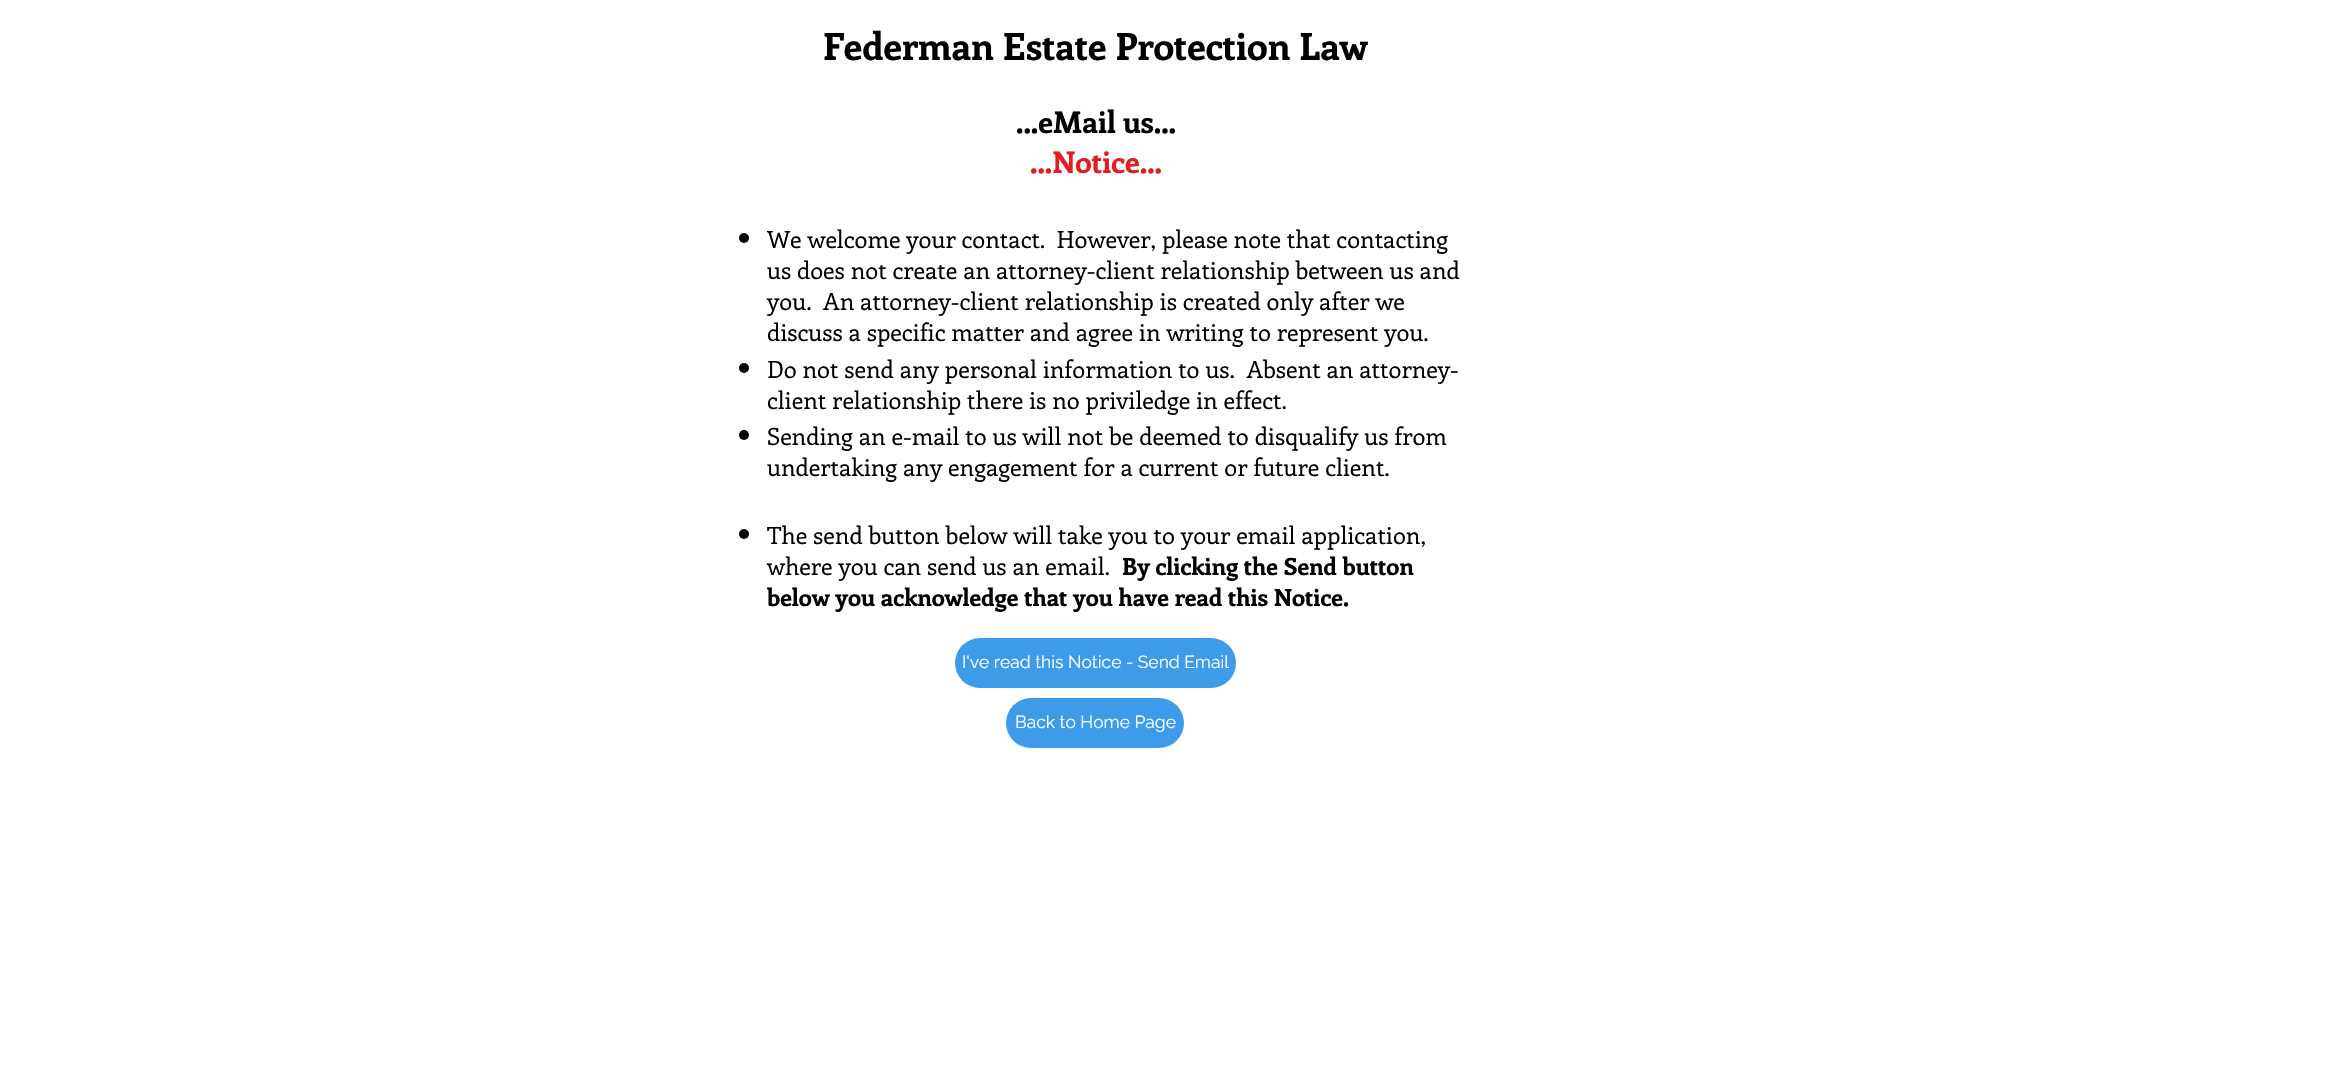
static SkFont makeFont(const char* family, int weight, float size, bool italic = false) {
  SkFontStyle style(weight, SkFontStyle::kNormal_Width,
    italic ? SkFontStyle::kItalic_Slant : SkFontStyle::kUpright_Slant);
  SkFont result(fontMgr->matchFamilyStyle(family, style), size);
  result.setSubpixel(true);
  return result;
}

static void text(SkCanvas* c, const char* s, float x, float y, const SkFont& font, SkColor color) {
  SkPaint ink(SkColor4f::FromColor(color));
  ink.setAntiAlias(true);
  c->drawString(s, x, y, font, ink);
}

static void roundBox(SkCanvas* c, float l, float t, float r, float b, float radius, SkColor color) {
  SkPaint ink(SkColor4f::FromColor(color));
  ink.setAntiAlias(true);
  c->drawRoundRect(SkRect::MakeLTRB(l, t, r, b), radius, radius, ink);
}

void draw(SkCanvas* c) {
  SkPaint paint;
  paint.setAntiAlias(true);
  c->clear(0xffffffff);
  SkFont face1 = makeFont("Enriqueta", 700, 37.5f);
  text(c, "Federman Estate Protection Law", 823, 60, face1, 0xff000000);
  SkFont face2 = makeFont("Enriqueta", 700, 30);
  text(c, "...eMail us...", 1016, 133, face2, 0xff000000);
  text(c, "...Notice...", 1030, 173, face2, 0xffe21c21);
  paint.setColor(0xff000000);
  c->drawCircle(744, 238, 5, paint);
  SkFont face3 = makeFont("Enriqueta", 400, 23.75f);
  text(c, "We welcome your contact.  However, please note that contacting", 767, 248, face3, 0xff000000);
  text(c, "us does not create an attorney-client relationship between us and", 767, 279, face3, 0xff000000);
  text(c, "you.  An attorney-client relationship is created only after we", 767, 310, face3, 0xff000000);
  text(c, "discuss a specific matter and agree in writing to represent you.", 767, 341, face3, 0xff000000);
  c->drawCircle(744, 368, 5, paint);
  text(c, "Do not send any personal information to us.  Absent an attorney-", 767, 378, face3, 0xff000000);
  text(c, "client relationship there is no priviledge in effect.", 767, 409, face3, 0xff000000);
  c->drawCircle(744, 435, 5, paint);
  text(c, "Sending an e-mail to us will not be deemed to disqualify us from", 767, 445, face3, 0xff000000);
  text(c, "undertaking any engagement for a current or future client.", 767, 476, face3, 0xff000000);
  c->drawCircle(744, 534, 5, paint);
  text(c, "The send button below will take you to your email application,", 767, 544, face3, 0xff000000);
  text(c, "where you can send us an email.", 767, 575, face3, 0xff000000);
  SkFont face4 = makeFont("Enriqueta", 700, 23.75f);
  text(c, "By clicking the Send button", 1122, 575, face4, 0xff000000);
  text(c, "below you acknowledge that you have read this Notice.", 767, 606, face4, 0xff000000);
  roundBox(c, 955, 638, 1236, 688, 25, 0xff3d9be9);
  SkFont face5 = makeFont("Raleway", 400, 17.5f);
  text(c, "I've read this Notice - Send Email", 962, 668, face5, 0xffffffff);
  roundBox(c, 1006, 698, 1184, 748, 25, 0xff3d9be9);
  text(c, "Back to Home Page", 1015, 728, face5, 0xffffffff);
}
